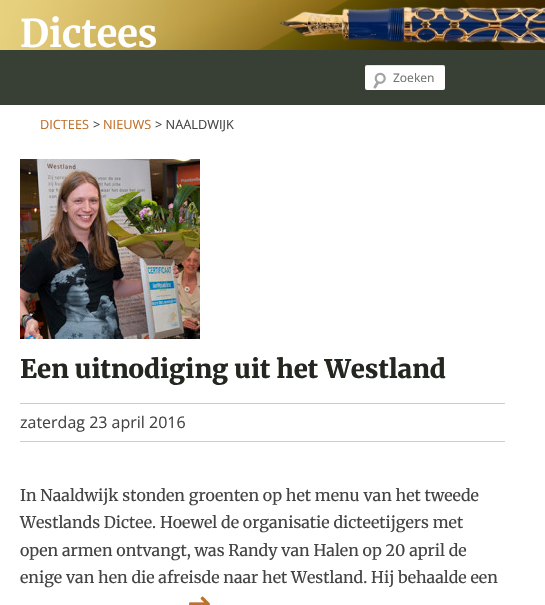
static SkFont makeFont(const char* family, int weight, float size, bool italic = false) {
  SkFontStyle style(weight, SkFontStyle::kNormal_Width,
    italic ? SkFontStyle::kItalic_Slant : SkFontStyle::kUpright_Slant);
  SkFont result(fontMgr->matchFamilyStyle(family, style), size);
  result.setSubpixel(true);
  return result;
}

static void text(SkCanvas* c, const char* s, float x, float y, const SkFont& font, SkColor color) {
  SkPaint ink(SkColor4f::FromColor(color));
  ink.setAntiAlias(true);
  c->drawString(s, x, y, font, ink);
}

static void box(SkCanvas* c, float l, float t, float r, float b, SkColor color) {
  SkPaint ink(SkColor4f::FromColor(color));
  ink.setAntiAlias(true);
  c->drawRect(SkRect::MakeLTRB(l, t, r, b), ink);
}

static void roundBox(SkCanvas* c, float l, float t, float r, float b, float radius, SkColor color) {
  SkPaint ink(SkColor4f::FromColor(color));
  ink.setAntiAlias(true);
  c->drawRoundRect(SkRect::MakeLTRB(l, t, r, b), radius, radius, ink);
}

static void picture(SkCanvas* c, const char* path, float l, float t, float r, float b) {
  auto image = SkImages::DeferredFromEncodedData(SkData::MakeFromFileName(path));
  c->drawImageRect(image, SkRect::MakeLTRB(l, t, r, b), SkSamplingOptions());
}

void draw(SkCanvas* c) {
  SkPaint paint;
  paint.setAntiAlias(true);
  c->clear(0xffffffff);
  picture(c, "img_01.png", 0, 0, 545, 50);
  SkFont face1 = makeFont("Merriweather", 700, 38);
  text(c, "Dictees", 20, 47, face1, 0xffffffff);
  box(c, 0, 50, 545, 105, 0xff384035);
  roundBox(c, 365, 65, 445, 90, 2, 0xffffffff);
  picture(c, "img_02.png", 373, 72, 386, 89);
  paint.setColor(0x1a000000);
  c->drawPath(SkPathBuilder().moveTo(367, 66).lineTo(443, 66).cubicTo(444, 66, 445, 67, 445, 68).cubicTo(445, 62, 433, 65, 430, 65).lineTo(380, 65).cubicTo(377, 65, 365, 62, 365, 68).cubicTo(365, 67, 366, 66, 367, 66).close().detach(), paint);
  SkFont face2 = makeFont("Noto Sans", 400, 12);
  text(c, "Zoeken", 393, 82, face2, 0xff757575);
  SkFont face3 = makeFont("Open Sans", 400, 12.75f);
  text(c, "DICTEES", 40, 129, face3, 0xffbe712d);
  text(c, ">", 93, 129, face3, 0xff444444);
  text(c, "NIEUWS", 103, 129, face3, 0xffbe712d);
  text(c, "> NAALDWIJK", 155, 129, face3, 0xff444444);
  picture(c, "img_03.png", 20, 159, 200, 339);
  SkFont face4 = makeFont("Merriweather", 900, 25.6f);
  text(c, "Een uitnodiging uit het Westland", 20, 378, face4, 0xff232720);
  box(c, 20, 403, 505, 404, 0xffcccccc);
  box(c, 20, 441, 505, 442, 0xffcccccc);
  SkFont face5 = makeFont("Open Sans", 400, 16);
  text(c, "zaterdag 23 april 2016", 20, 428, face5, 0xff444444);
  SkFont face6 = makeFont("Merriweather", 400, 16);
  text(c, "In Naaldwijk stonden groenten op het menu van het tweede", 20, 501, face6, 0xff444444);
  text(c, "Westlands Dictee. Hoewel de organisatie dicteetijgers met", 20, 528, face6, 0xff444444);
  text(c, "open armen ontvangt, was Randy van Halen op 20 april de", 20, 556, face6, 0xff444444);
  text(c, "enige van hen die afreisde naar het Westland. Hij behaalde een", 20, 583, face6, 0xff444444);
  picture(c, "img_04.png", 189, 596, 210, 605);
}
